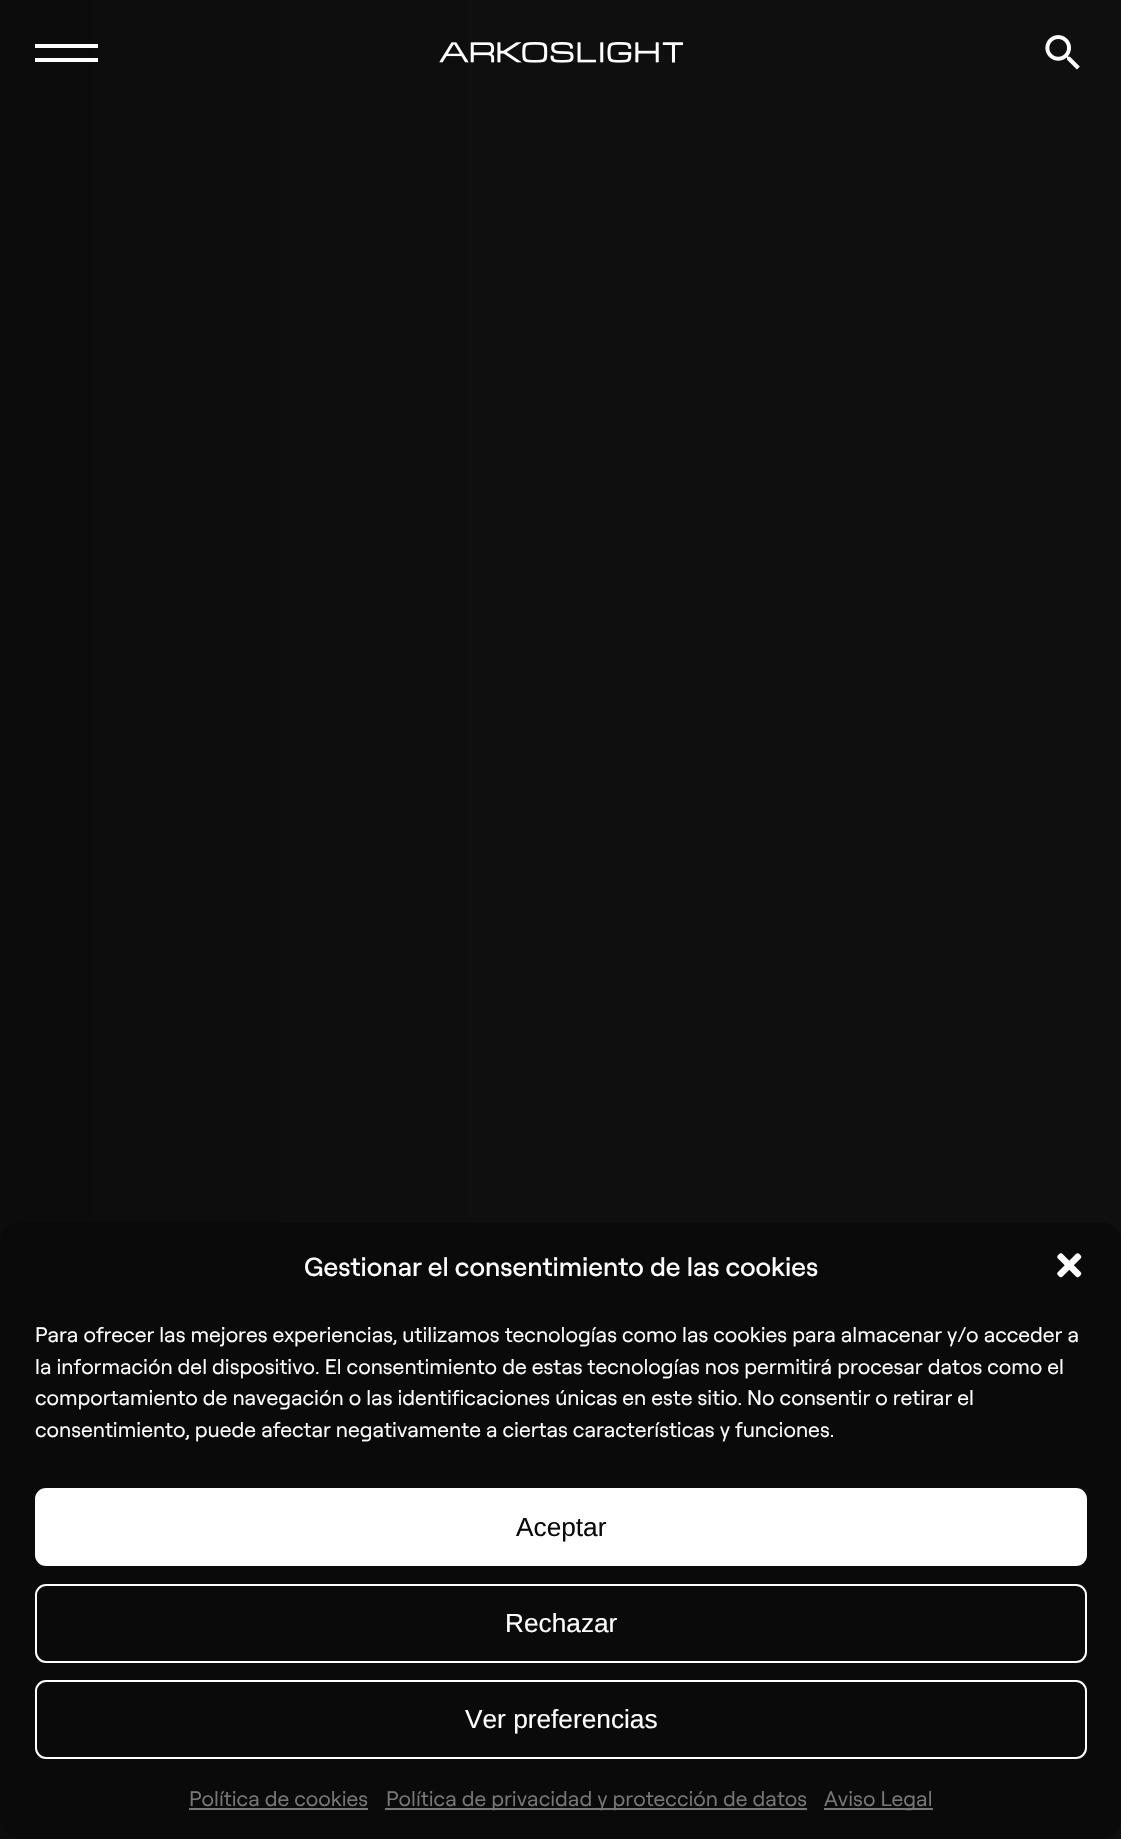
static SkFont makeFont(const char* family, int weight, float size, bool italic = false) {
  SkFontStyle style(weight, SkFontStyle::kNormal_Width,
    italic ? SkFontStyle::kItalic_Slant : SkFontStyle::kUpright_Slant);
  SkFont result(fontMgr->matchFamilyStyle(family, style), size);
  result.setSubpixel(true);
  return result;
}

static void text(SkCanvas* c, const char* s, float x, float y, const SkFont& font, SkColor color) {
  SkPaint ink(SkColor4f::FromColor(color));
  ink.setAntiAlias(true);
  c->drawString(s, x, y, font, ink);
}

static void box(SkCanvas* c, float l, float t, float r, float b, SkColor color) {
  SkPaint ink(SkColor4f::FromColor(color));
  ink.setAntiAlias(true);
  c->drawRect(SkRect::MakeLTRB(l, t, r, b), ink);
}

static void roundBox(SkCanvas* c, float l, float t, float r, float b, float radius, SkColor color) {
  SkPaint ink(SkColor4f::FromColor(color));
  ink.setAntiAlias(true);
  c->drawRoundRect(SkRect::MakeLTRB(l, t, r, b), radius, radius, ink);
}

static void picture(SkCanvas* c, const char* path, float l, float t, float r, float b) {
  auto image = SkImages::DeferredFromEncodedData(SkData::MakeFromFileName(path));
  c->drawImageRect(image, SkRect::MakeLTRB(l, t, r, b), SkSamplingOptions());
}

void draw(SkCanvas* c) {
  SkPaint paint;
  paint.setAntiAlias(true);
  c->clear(0xffffffff);
  {
    const SkColor colors[] = {0xff0c0c0c, 0xff0f0f0f};
    const float stops[] = {0, 0.5f};
    const SkPoint ends[] = {{0, 920}, {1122, 920}};
    paint.setShader(SkGradientShader::MakeLinear(ends, colors, stops, 2, SkTileMode::kClamp));
    paint.setAlpha(255);
  }
  c->drawRect(SkRect::MakeLTRB(0, 0, 1121, 1839), paint);
  box(c, 35, 44, 98, 48, 0xffffffff);
  box(c, 35, 58, 98, 62, 0xffffffff);
  picture(c, "img_01.png", 439, 42, 683, 63);
  picture(c, "img_02.png", 1045, 35, 1080, 70);
  roundBox(c, 0, 1222, 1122, 1839, 21, 0xff0a0a0a);
  SkFont face1 = makeFont("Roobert", 500, 26.25f);
  text(c, "Gestionar el consentimiento de las cookies", 304, 1276, face1, 0xffffffff);
  picture(c, "img_03.png", 1057, 1253, 1082, 1278);
  SkFont face2 = makeFont("Roobert", 400, 21);
  text(c, "Para ofrecer las mejores experiencias, utilizamos tecnologías como las cookies para almacenar y/o acceder a", 35, 1342, face2, 0xffffffff);
  text(c, "la información del dispositivo. El consentimiento de estas tecnologías nos permitirá procesar datos como el", 35, 1374, face2, 0xffffffff);
  text(c, "comportamiento de navegación o las identificaciones únicas en este sitio. No consentir o retirar el", 35, 1405, face2, 0xffffffff);
  text(c, "consentimiento, puede afectar negativamente a ciertas características y funciones.", 35, 1437, face2, 0xffffffff);
  paint.setShader(nullptr);
  paint.setColor(0xffffffff);
  c->drawRoundRect(SkRect::MakeLTRB(36, 1489, 1086, 1565), 10, 10, paint);
  paint.setStyle(SkPaint::kStroke_Style);
  paint.setStrokeWidth(2);
  c->drawRoundRect(SkRect::MakeLTRB(36, 1489, 1086, 1565), 10, 10, paint);
  SkFont face3 = makeFont("Liberation Sans", 400, 26.25f);
  text(c, "Aceptar", 516, 1536, face3, 0xff0a0a0a);
  c->drawRoundRect(SkRect::MakeLTRB(36, 1585, 1086, 1662), 10, 10, paint);
  text(c, "Rechazar", 505, 1632, face3, 0xffffffff);
  c->drawRoundRect(SkRect::MakeLTRB(36, 1681, 1086, 1758), 10, 10, paint);
  text(c, "Ver preferencias", 465, 1728, face3, 0xffffffff);
  text(c, "Política de cookies", 189, 1806, face2, 0xff777777);
  box(c, 189, 1808, 368, 1810, 0xff777777);
  box(c, 385, 1808, 807, 1810, 0xff777777);
  text(c, "Política de privacidad y protección de datos", 386, 1806, face2, 0xff777777);
  box(c, 824, 1808, 933, 1810, 0xff777777);
  text(c, "Aviso Legal", 824, 1806, face2, 0xff777777);
}
